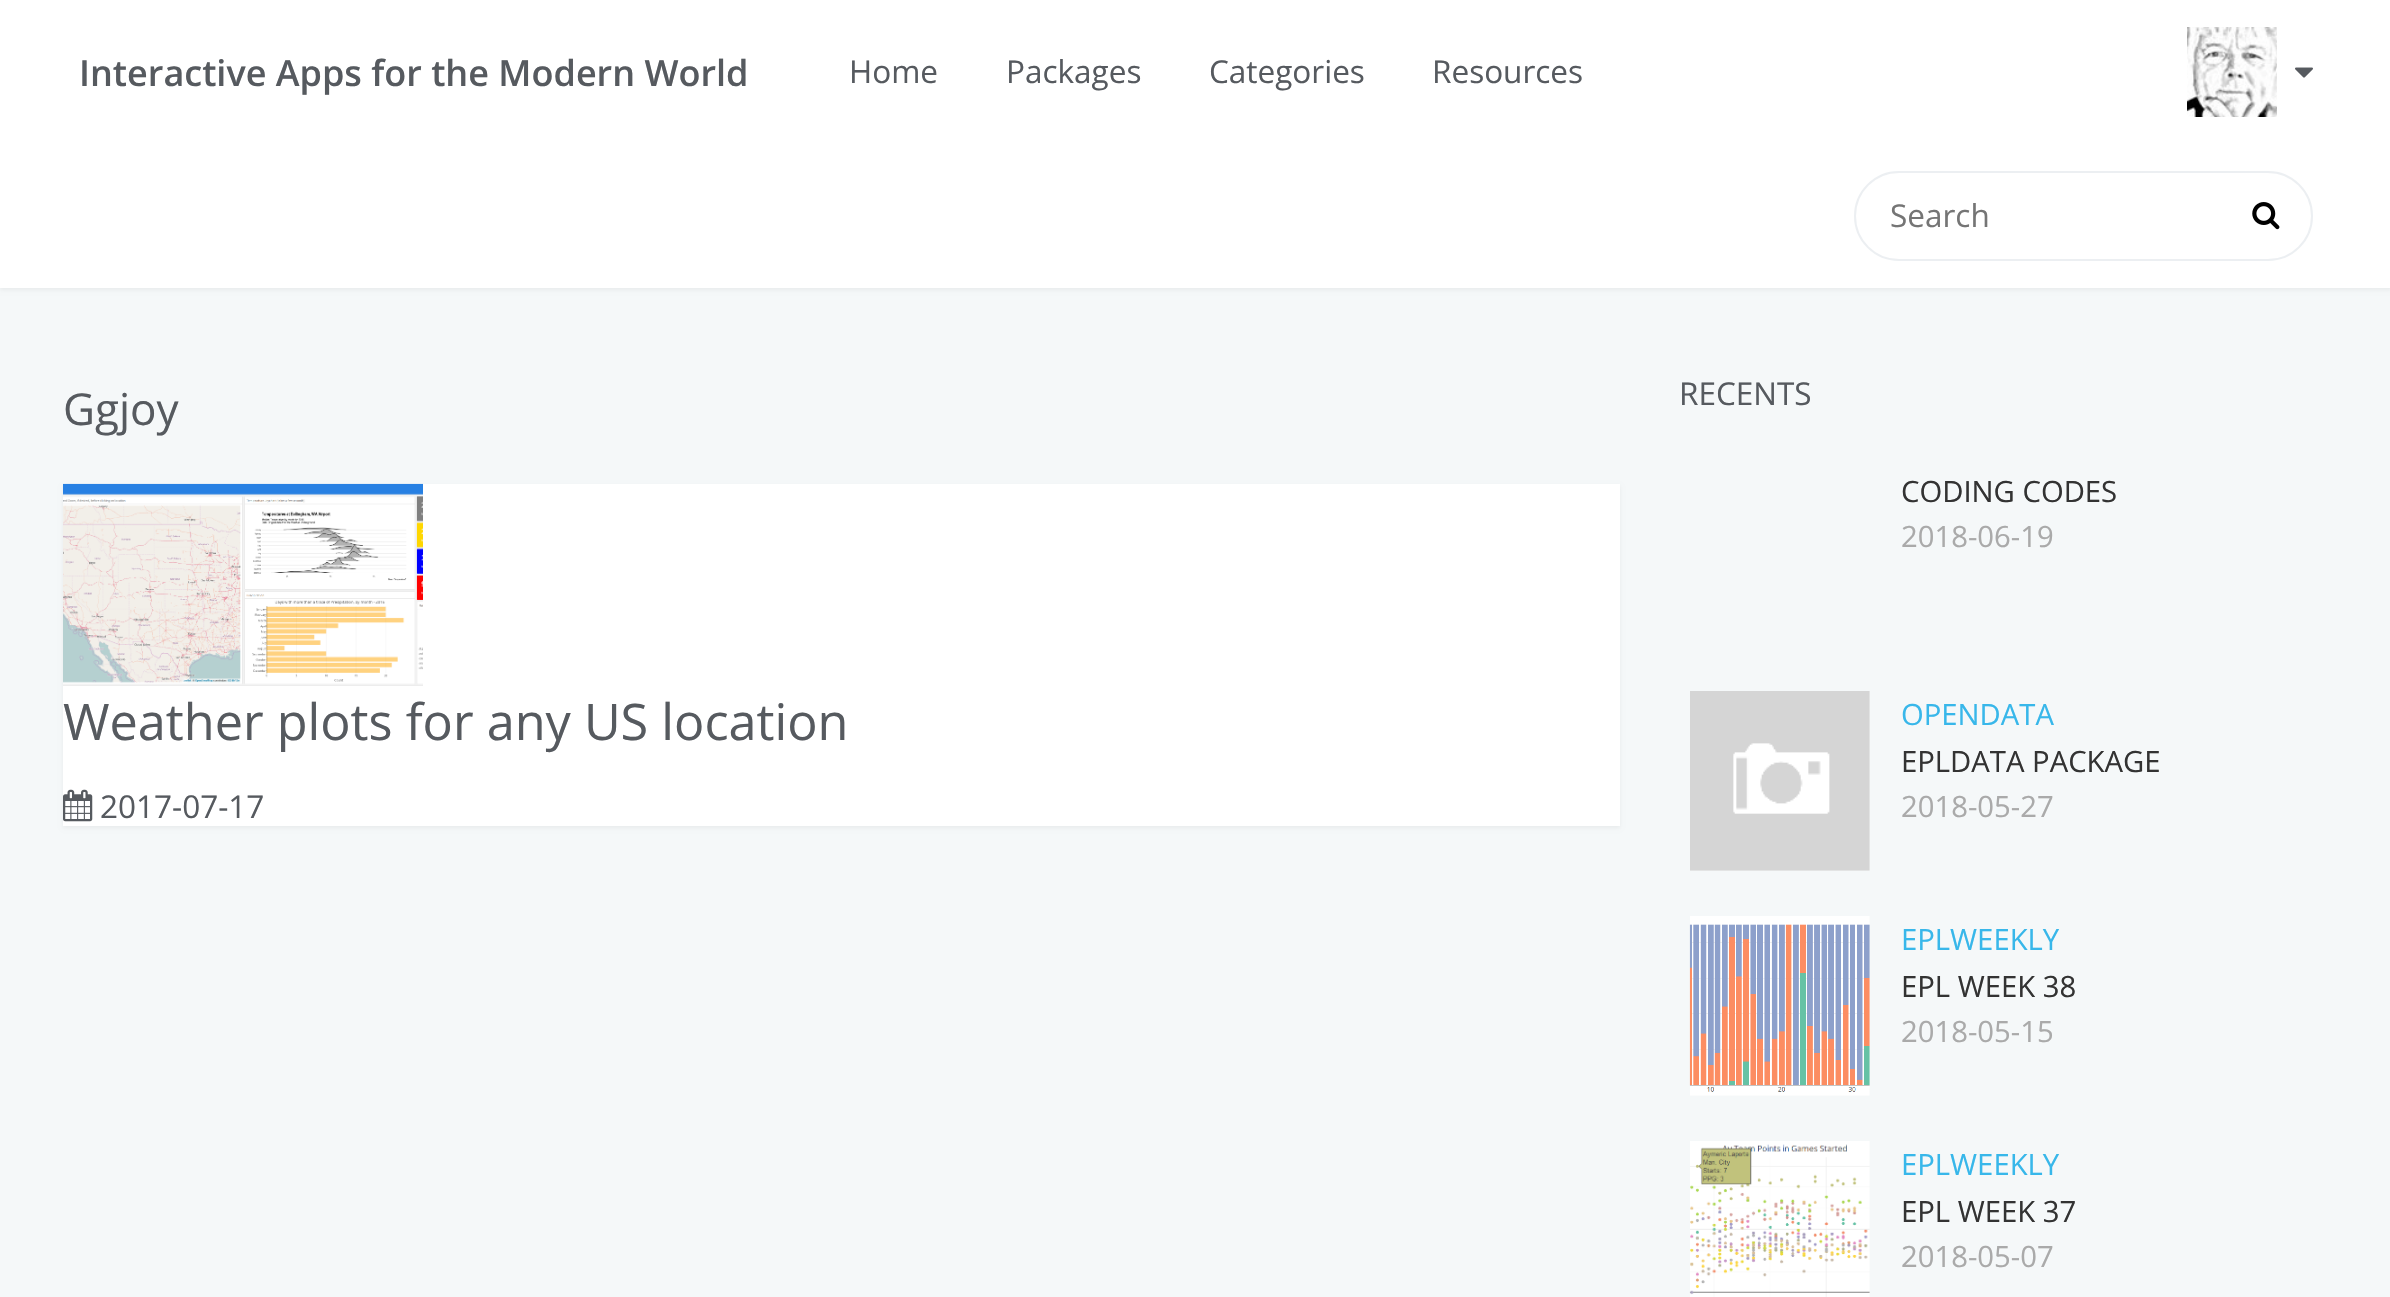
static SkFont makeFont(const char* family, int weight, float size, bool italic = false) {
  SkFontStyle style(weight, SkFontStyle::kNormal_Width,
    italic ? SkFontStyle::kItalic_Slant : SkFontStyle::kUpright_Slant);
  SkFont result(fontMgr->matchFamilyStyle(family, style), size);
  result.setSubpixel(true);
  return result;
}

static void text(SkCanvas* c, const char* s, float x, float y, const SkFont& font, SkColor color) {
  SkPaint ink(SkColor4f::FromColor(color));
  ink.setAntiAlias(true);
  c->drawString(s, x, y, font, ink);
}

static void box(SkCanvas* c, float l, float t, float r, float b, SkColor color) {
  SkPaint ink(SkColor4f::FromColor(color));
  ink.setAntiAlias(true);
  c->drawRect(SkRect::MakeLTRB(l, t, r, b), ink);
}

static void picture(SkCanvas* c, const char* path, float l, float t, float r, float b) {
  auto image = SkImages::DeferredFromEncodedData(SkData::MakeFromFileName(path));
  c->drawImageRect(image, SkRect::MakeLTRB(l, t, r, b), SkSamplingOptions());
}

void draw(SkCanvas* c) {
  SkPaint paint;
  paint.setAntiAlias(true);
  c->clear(0xfff5f8f9);
  paint.setColor(0x0d000000);
  paint.setMaskFilter(SkMaskFilter::MakeBlur(kNormal_SkBlurStyle, 2));
  c->drawRect(SkRect::MakeLTRB(0, 2, 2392, 290), paint);
  paint.setMaskFilter(nullptr);
  box(c, 0, 0, 2390, 288, 0xffffffff);
  SkFont face1 = makeFont("Open Sans", 600, 36);
  text(c, "Interactive Apps for the Modern World", 79, 86, face1, 0xff565a5f);
  SkFont face2 = makeFont("Open Sans", 400, 31.5f);
  text(c, "Home", 849, 83, face2, 0xff565a5f);
  text(c, "Packages", 1006, 83, face2, 0xff565a5f);
  text(c, "Categories", 1209, 83, face2, 0xff565a5f);
  text(c, "Resources", 1432, 83, face2, 0xff565a5f);
  picture(c, "img_01.png", 2187, 27, 2277, 117);
  picture(c, "img_02.png", 2295, 67, 2313, 78);
  paint.setStyle(SkPaint::kStroke_Style);
  paint.setStrokeWidth(2);
  paint.setColor(0xffeceff2);
  c->drawRoundRect(SkRect::MakeLTRB(1855, 172, 2312, 260), 44, 44, paint);
  text(c, "Search", 1890, 227, face2, 0xff757575);
  picture(c, "img_03.png", 2252, 202, 2280, 230);
  SkFont face3 = makeFont("Open Sans", 400, 44);
  text(c, "Ggjoy", 63, 425, face3, 0xff565a5f);
  paint.setStyle(SkPaint::kFill_Style);
  paint.setColor(0x0d000000);
  paint.setMaskFilter(SkMaskFilter::MakeBlur(kNormal_SkBlurStyle, 2));
  c->drawRect(SkRect::MakeLTRB(63, 486, 1620, 828), paint);
  paint.setMaskFilter(nullptr);
  box(c, 63, 484, 1620, 826, 0xffffffff);
  picture(c, "img_04.png", 63, 483, 423, 686);
  SkFont face4 = makeFont("Open Sans", 400, 50.4f);
  text(c, "Weather plots for any US location", 63, 740, face4, 0xff565a5f);
  picture(c, "img_05.png", 63, 789, 93, 822);
  text(c, "2017-07-17", 100, 818, face2, 0xff565a5f);
  text(c, "RECENTS", 1679, 405, face2, 0xff565a5f);
  SkFont face5 = makeFont("Open Sans", 400, 29.25f);
  text(c, "CODING CODES", 1901, 502, face5, 0xff333333);
  text(c, "2018-06-19", 1901, 547, face5, 0xffaaaaaa);
  picture(c, "img_06.png", 1690, 691, 1870, 871);
  text(c, "OPENDATA", 1901, 725, face5, 0xff38b7ea);
  text(c, "EPLDATA PACKAGE", 1901, 772, face5, 0xff333333);
  text(c, "2018-05-27", 1901, 817, face5, 0xffaaaaaa);
  picture(c, "img_07.png", 1689, 916, 1870, 1096);
  text(c, "EPLWEEKLY", 1901, 950, face5, 0xff38b7ea);
  text(c, "EPL WEEK 38", 1901, 997, face5, 0xff333333);
  text(c, "2018-05-15", 1901, 1042, face5, 0xffaaaaaa);
  picture(c, "img_08.png", 1689, 1141, 1870, 1297);
  text(c, "EPLWEEKLY", 1901, 1175, face5, 0xff38b7ea);
  text(c, "EPL WEEK 37", 1901, 1222, face5, 0xff333333);
  text(c, "2018-05-07", 1901, 1267, face5, 0xffaaaaaa);
}
